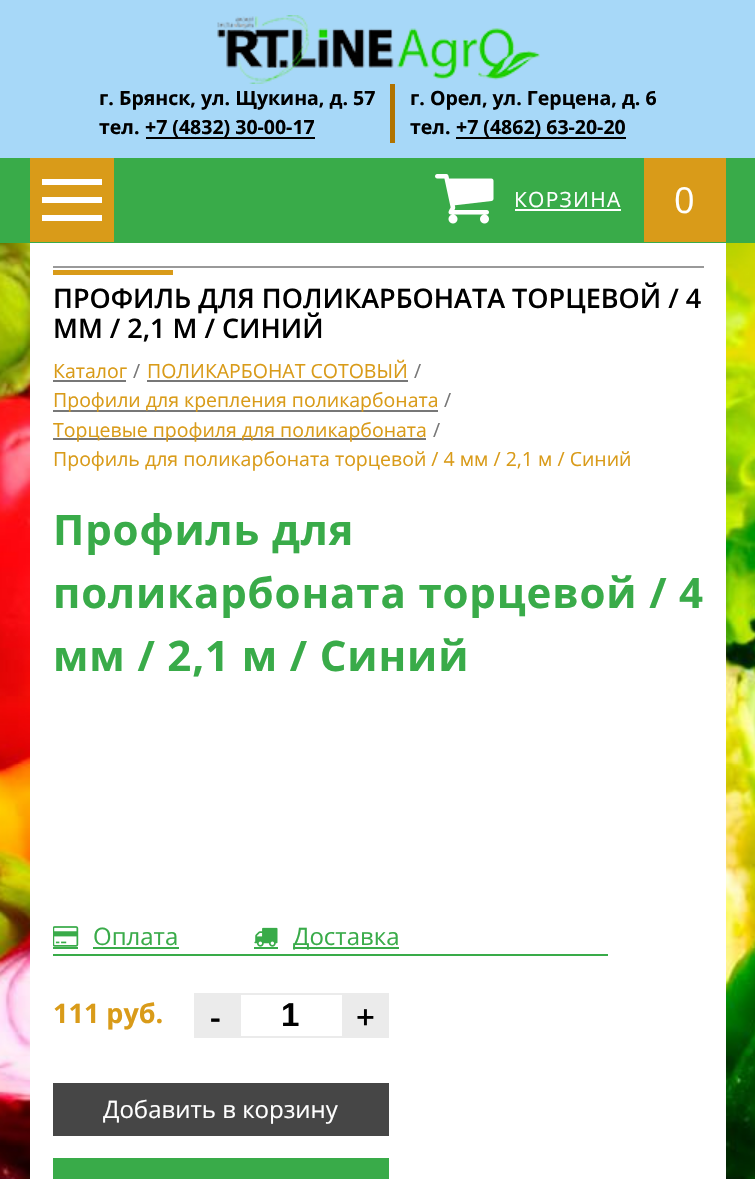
static SkFont makeFont(const char* family, int weight, float size, bool italic = false) {
  SkFontStyle style(weight, SkFontStyle::kNormal_Width,
    italic ? SkFontStyle::kItalic_Slant : SkFontStyle::kUpright_Slant);
  SkFont result(fontMgr->matchFamilyStyle(family, style), size);
  result.setSubpixel(true);
  return result;
}

static void text(SkCanvas* c, const char* s, float x, float y, const SkFont& font, SkColor color) {
  SkPaint ink(SkColor4f::FromColor(color));
  ink.setAntiAlias(true);
  c->drawString(s, x, y, font, ink);
}

static void spacedText(SkCanvas* c, const char* s, float x, float y, const SkFont& font, const SkPaint& ink, float letter, float word) {
  std::vector<SkGlyphID> glyphs(font.countText(s, strlen(s), SkTextEncoding::kUTF8));
  std::vector<float> xs(glyphs.size());
  font.textToGlyphs(s, strlen(s), SkTextEncoding::kUTF8, glyphs);
  font.getXPos(glyphs, xs, x);
  float extra = 0;
  for (size_t i = 0; i < glyphs.size(); i++) {
    xs[i] += extra;
    extra += letter + word * (glyphs[i] == font.unicharToGlyph(' '));
  }
  c->drawTextBlob(SkTextBlob::MakeFromPosHGlyphs(glyphs, xs, y, font), 0, 0, ink);
}

static void box(SkCanvas* c, float l, float t, float r, float b, SkColor color) {
  SkPaint ink(SkColor4f::FromColor(color));
  ink.setAntiAlias(true);
  c->drawRect(SkRect::MakeLTRB(l, t, r, b), ink);
}

static void picture(SkCanvas* c, const char* path, float l, float t, float r, float b) {
  auto image = SkImages::DeferredFromEncodedData(SkData::MakeFromFileName(path));
  c->drawImageRect(image, SkRect::MakeLTRB(l, t, r, b), SkSamplingOptions());
}

void draw(SkCanvas* c) {
  SkPaint paint;
  paint.setAntiAlias(true);
  c->clear(0xffffffff);
  picture(c, "img_01.png", 0, 243, 755, 1179);
  box(c, 0, 0, 755, 158, 0xffa7d8f8);
  picture(c, "img_02.png", 217, 15, 540, 84);
  SkFont face1 = makeFont("Open Sans", 700, 19.5f);
  text(c, "г. Брянск, ул. Щукина, д. 57", 99, 105, face1, 0xff000000);
  text(c, "тел.", 99, 134, face1, 0xff000000);
  box(c, 146, 137, 315, 139, 0xff000000);
  text(c, "+7 (4832) 30-00-17", 145, 134, face1, 0xff000000);
  box(c, 390, 84, 395, 143, 0xffb17300);
  text(c, "г. Орел, ул. Герцена, д. 6", 410, 105, face1, 0xff000000);
  text(c, "тел.", 410, 134, face1, 0xff000000);
  box(c, 456, 137, 626, 139, 0xff000000);
  text(c, "+7 (4862) 63-20-20", 456, 134, face1, 0xff000000);
  box(c, 0, 158, 755, 243, 0xff39ab49);
  box(c, 30, 158, 114, 242, 0xffd99b19);
  box(c, 42, 179, 102, 185, 0xffffffff);
  box(c, 42, 197, 102, 203, 0xffffffff);
  box(c, 42, 215, 102, 221, 0xffffffff);
  picture(c, "img_03.png", 435, 174, 494, 224);
  SkFont face2 = makeFont("Open Sans", 400, 21);
  paint.setColor(0xffffffff);
  spacedText(c, "КОРЗИНА", 514, 207, face2, paint, 1.25f, 0);
  box(c, 515, 209, 621, 211, 0xffffffff);
  box(c, 644, 158, 726, 242, 0xffd99b19);
  SkFont face3 = makeFont("Open Sans", 400, 36);
  spacedText(c, "0", 674, 213, face3, paint, 1.25f, 0);
  box(c, 30, 243, 726, 1179, 0xffffffff);
  box(c, 53, 266, 704, 268, 0xff999999);
  box(c, 53, 270, 173, 275, 0xffd99b19);
  SkFont face4 = makeFont("Open Sans", 600, 27);
  text(c, "ПРОФИЛЬ ДЛЯ ПОЛИКАРБОНАТА ТОРЦЕВОЙ / 4", 53, 308, face4, 0xff000000);
  text(c, "ММ / 2,1 М / СИНИЙ", 53, 338, face4, 0xff000000);
  SkFont face5 = makeFont("Open Sans", 400, 19.5f);
  text(c, "Каталог", 53, 378, face5, 0xffd99b19);
  box(c, 53, 380, 126, 382, 0xff777777);
  text(c, "/", 133, 378, face5, 0xff777777);
  text(c, "ПОЛИКАРБОНАТ СОТОВЫЙ", 147, 378, face5, 0xffd99b19);
  box(c, 147, 380, 408, 382, 0xff777777);
  text(c, "/", 414, 378, face5, 0xff777777);
  box(c, 53, 410, 438, 412, 0xff777777);
  text(c, "Профили для крепления поликарбоната", 53, 407, face5, 0xffd99b19);
  text(c, "/", 444, 407, face5, 0xff777777);
  box(c, 53, 438, 426, 440, 0xff777777);
  text(c, "Торцевые профиля для поликарбоната", 53, 437, face5, 0xffd99b19);
  text(c, "/", 433, 437, face5, 0xff777777);
  text(c, "Профиль для поликарбоната торцевой / 4 мм / 2,1 м / Синий", 53, 466, face5, 0xffd99b19);
  SkFont face6 = makeFont("Open Sans", 700, 42);
  paint.setColor(0xff39ab49);
  spacedText(c, "Профиль для", 53, 545, face6, paint, 0.85f, 0);
  spacedText(c, "поликарбоната торцевой / 4", 53, 608, face6, paint, 0.85f, 0);
  spacedText(c, "мм / 2,1 м / Синий", 53, 671, face6, paint, 0.85f, 0);
  box(c, 53, 954, 608, 956, 0xff39ab49);
  picture(c, "img_04.png", 53, 926, 79, 947);
  SkFont face7 = makeFont("Open Sans", 400, 24);
  text(c, "Оплата", 93, 945, face7, 0xff39ab49);
  box(c, 53, 947, 78, 949, 0xff39ab49);
  box(c, 93, 947, 179, 949, 0xff39ab49);
  picture(c, "img_05.png", 254, 927, 278, 947);
  box(c, 293, 947, 399, 949, 0xff39ab49);
  text(c, "Доставка", 293, 945, face7, 0xff39ab49);
  box(c, 254, 947, 278, 949, 0xff39ab49);
  SkFont face8 = makeFont("Open Sans", 700, 27);
  text(c, "111 руб.", 53, 1023, face8, 0xffd99b19);
  box(c, 194, 993, 239, 1038, 0xffebebeb);
  SkFont face9 = makeFont("Open Sans", 600, 33);
  text(c, "-", 210, 1029, face9, 0xff000000);
  paint.setStyle(SkPaint::kStroke_Style);
  paint.setStrokeWidth(2);
  paint.setColor(0xffebebeb);
  c->drawRect(SkRect::MakeLTRB(240, 994, 343, 1037), paint);
  SkFont face10 = makeFont("Liberation Sans", 700, 33);
  text(c, "1", 281, 1026, face10, 0xff000000);
  box(c, 344, 993, 389, 1038, 0xffebebeb);
  text(c, "+", 356, 1029, face9, 0xff000000);
  box(c, 53, 1083, 389, 1136, 0xff464646);
  text(c, "Добавить в корзину", 103, 1118, face7, 0xffffffff);
  box(c, 53, 1158, 389, 1179, 0xff39ab49);
}
